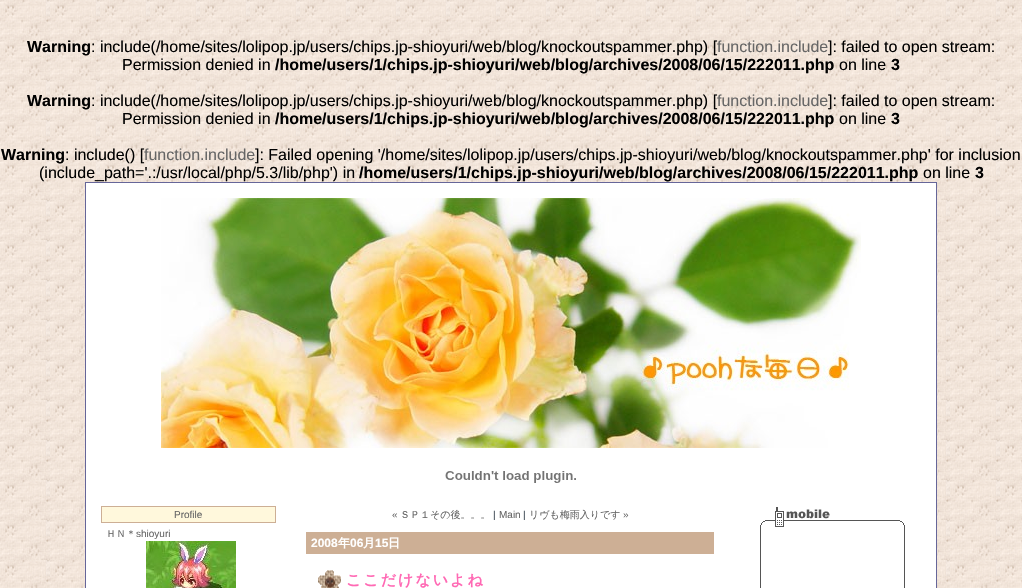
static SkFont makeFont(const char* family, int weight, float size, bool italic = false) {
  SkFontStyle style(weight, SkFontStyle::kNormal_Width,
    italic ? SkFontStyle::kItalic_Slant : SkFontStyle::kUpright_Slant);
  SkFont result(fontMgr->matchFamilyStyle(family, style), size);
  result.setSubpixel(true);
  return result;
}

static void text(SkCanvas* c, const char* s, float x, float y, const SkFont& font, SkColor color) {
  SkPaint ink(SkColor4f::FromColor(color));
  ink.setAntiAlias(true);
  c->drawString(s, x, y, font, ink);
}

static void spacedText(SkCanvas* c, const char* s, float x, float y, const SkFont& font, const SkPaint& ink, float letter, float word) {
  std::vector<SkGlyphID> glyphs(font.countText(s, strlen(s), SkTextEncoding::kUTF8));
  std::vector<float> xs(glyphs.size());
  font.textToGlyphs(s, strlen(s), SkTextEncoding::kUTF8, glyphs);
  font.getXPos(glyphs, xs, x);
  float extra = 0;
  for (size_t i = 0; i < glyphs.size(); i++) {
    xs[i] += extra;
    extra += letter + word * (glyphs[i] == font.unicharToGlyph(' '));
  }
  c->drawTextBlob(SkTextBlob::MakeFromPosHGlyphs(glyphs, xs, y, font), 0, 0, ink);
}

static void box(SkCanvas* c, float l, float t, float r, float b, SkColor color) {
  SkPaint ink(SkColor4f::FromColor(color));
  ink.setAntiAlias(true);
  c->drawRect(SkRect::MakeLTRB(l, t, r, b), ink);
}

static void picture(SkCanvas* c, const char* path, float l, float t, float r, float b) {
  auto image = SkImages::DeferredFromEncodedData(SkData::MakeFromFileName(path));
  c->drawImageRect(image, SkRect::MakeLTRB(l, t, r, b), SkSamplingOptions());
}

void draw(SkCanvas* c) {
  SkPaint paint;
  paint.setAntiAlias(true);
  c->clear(0xffffffff);
  picture(c, "img_01.png", 0, 0, 1022, 588);
  SkFont face1 = makeFont("Liberation Sans", 700, 16);
  text(c, "Warning", 27, 52, face1, 0xff000000);
  SkFont face2 = makeFont("Liberation Sans", 400, 16);
  text(c, ": include(/home/sites/lolipop.jp/users/chips.jp-shioyuri/web/blog/knockoutspammer.php) [", 91, 52, face2, 0xff000000);
  text(c, "function.include", 717, 52, face2, 0xff666666);
  text(c, "]: failed to open stream:", 828, 52, face2, 0xff000000);
  text(c, "Permission denied in", 122, 70, face2, 0xff000000);
  text(c, "/home/users/1/chips.jp-shioyuri/web/blog/archives/2008/06/15/222011.php", 275, 70, face1, 0xff000000);
  text(c, "on line", 839, 70, face2, 0xff000000);
  text(c, "3", 891, 70, face1, 0xff000000);
  text(c, "Warning", 27, 106, face1, 0xff000000);
  text(c, ": include(/home/sites/lolipop.jp/users/chips.jp-shioyuri/web/blog/knockoutspammer.php) [", 91, 106, face2, 0xff000000);
  text(c, "function.include", 717, 106, face2, 0xff666666);
  text(c, "]: failed to open stream:", 828, 106, face2, 0xff000000);
  text(c, "Permission denied in", 122, 124, face2, 0xff000000);
  text(c, "/home/users/1/chips.jp-shioyuri/web/blog/archives/2008/06/15/222011.php", 275, 124, face1, 0xff000000);
  text(c, "on line", 839, 124, face2, 0xff000000);
  text(c, "3", 891, 124, face1, 0xff000000);
  text(c, "Warning", 1, 160, face1, 0xff000000);
  text(c, ": include() [", 65, 160, face2, 0xff000000);
  text(c, "function.include", 144, 160, face2, 0xff666666);
  text(c, "]: Failed opening '/home/sites/lolipop.jp/users/chips.jp-shioyuri/web/blog/knockoutspammer.php' for inclusion", 255, 160, face2, 0xff000000);
  text(c, "(include_path='.:/usr/local/php/5.3/lib/php') in", 39, 178, face2, 0xff000000);
  text(c, "/home/users/1/chips.jp-shioyuri/web/blog/archives/2008/06/15/222011.php", 359, 178, face1, 0xff000000);
  text(c, "on line", 923, 178, face2, 0xff000000);
  text(c, "3", 975, 178, face1, 0xff000000);
  paint.setColor(0xffffffff);
  c->drawRect(SkRect::MakeLTRB(85.5f, 182.5f, 936.5f, 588.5f), paint);
  paint.setStyle(SkPaint::kStroke_Style);
  paint.setStrokeWidth(1);
  paint.setColor(0xff666699);
  c->drawRect(SkRect::MakeLTRB(85.5f, 182.5f, 936.5f, 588.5f), paint);
  picture(c, "img_02.png", 161, 198, 861, 448);
  picture(c, "img_03.png", 445, 471, 576, 483);
  paint.setStyle(SkPaint::kFill_Style);
  paint.setColor(0xfffff8dc);
  c->drawRect(SkRect::MakeLTRB(101.5f, 506.5f, 275.5f, 522.5f), paint);
  paint.setStyle(SkPaint::kStroke_Style);
  paint.setColor(0xffcdaf95);
  c->drawRect(SkRect::MakeLTRB(101.5f, 506.5f, 275.5f, 522.5f), paint);
  SkFont face3 = makeFont("Liberation Sans", 400, 10);
  text(c, "Profile", 174, 518, face3, 0xff666666);
  SkFont face4 = makeFont("WenQuanYi Zen Hei", 500, 10);
  text(c, "ＨＮ＊", 106, 537, face4, 0xff666666);
  text(c, "shioyuri", 136, 537, face3, 0xff666666);
  picture(c, "img_04.png", 146, 541, 236, 588);
  text(c, "«", 392, 518, face3, 0xff666666);
  text(c, "ＳＰ１その後。。。", 400, 518, face4, 0xff666666);
  text(c, "|", 493, 518, face3, 0xff36414d);
  text(c, "Main", 499, 518, face3, 0xff666666);
  text(c, "|", 523, 518, face3, 0xff36414d);
  text(c, "リヴも梅雨入りです", 529, 518, face4, 0xff666666);
  text(c, "»", 623, 518, face3, 0xff666666);
  box(c, 306, 532, 714, 554, 0xffcdaf95);
  SkFont face5 = makeFont("Liberation Sans", 700, 12);
  text(c, "2008", 311, 547, face5, 0xffffffff);
  SkFont face6 = makeFont("WenQuanYi Zen Hei", 700, 12);
  text(c, "年", 338, 547, face6, 0xffffffff);
  text(c, "06", 350, 547, face5, 0xffffffff);
  text(c, "月", 363, 547, face6, 0xffffffff);
  text(c, "15", 375, 547, face5, 0xffffffff);
  text(c, "日", 388, 547, face6, 0xffffffff);
  picture(c, "img_05.png", 318, 570, 341, 588);
  SkFont face7 = makeFont("WenQuanYi Zen Hei", 700, 15);
  paint.setStyle(SkPaint::kFill_Style);
  paint.setColor(0xffff69b4);
  spacedText(c, "ここだけないよね", 346, 585, face7, paint, 2, 0);
  picture(c, "img_06.png", 760, 507, 905, 588);
}
